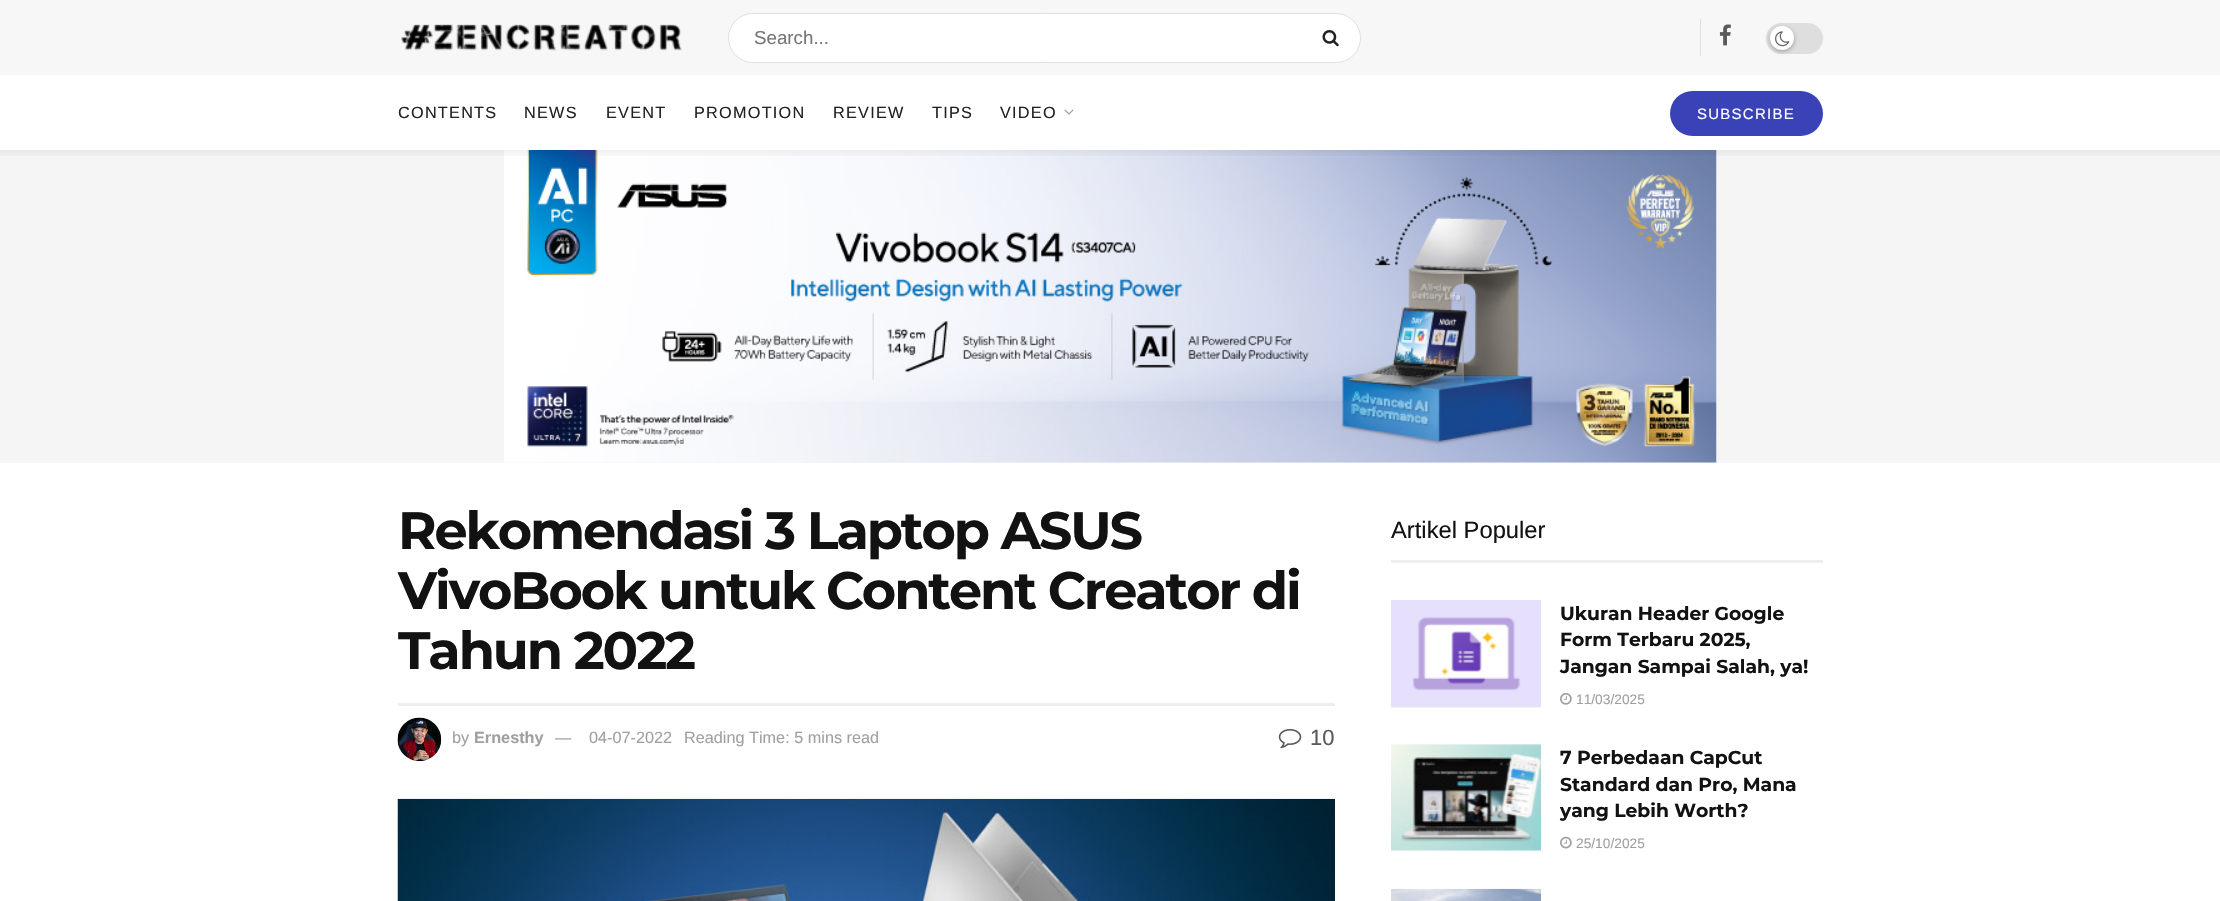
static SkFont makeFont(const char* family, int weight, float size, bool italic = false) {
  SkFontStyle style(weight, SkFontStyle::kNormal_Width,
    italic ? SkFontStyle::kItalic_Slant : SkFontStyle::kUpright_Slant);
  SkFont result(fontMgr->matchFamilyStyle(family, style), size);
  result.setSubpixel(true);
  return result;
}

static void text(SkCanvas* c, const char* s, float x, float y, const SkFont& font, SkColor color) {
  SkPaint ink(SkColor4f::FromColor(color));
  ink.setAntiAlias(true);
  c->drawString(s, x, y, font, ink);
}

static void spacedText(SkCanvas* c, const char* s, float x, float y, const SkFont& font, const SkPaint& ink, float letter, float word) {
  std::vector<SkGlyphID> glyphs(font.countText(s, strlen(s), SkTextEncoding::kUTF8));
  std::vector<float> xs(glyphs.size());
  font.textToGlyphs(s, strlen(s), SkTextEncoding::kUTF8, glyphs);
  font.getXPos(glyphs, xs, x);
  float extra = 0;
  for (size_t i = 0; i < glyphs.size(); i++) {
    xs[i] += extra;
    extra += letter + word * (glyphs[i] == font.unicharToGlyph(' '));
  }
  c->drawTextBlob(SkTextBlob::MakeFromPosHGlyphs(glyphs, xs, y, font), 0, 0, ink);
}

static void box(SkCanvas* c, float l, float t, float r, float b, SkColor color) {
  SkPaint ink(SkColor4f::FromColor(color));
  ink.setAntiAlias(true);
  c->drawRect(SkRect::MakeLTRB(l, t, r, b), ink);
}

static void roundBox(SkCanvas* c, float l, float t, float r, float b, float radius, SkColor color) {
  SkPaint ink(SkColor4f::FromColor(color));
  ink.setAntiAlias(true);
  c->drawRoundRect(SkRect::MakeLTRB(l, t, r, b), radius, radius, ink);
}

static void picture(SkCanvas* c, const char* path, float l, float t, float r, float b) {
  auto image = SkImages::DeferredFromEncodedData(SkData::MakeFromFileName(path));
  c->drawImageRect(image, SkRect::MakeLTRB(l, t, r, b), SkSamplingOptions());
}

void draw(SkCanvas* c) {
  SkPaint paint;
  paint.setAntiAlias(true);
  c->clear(0xffffffff);
  box(c, 0, 0, 2220, 75, 0xfff7f7f7);
  picture(c, "img_01.png", 401, 24, 682, 51);
  paint.setColor(0xffffffff);
  c->drawRoundRect(SkRect::MakeLTRB(728.5f, 13.5f, 1360.5f, 62.5f), 24.5f, 24.5f, paint);
  paint.setStyle(SkPaint::kStroke_Style);
  paint.setStrokeWidth(1);
  paint.setColor(0xffe0e0e0);
  c->drawRoundRect(SkRect::MakeLTRB(728.5f, 13.5f, 1360.5f, 62.5f), 24.5f, 24.5f, paint);
  SkFont face1 = makeFont("Liberation Sans", 400, 18.75f);
  text(c, "Search...", 754, 44, face1, 0xff757575);
  picture(c, "img_02.png", 1322, 30, 1339, 47);
  box(c, 1700, 19, 1701, 56, 0xffe0e0e0);
  picture(c, "img_03.png", 1719, 24, 1731, 46);
  roundBox(c, 1766, 23, 1823, 54, 15.5f, 0xffdedede);
  paint.setStyle(SkPaint::kFill_Style);
  paint.setColor(0x4d000000);
  paint.setMaskFilter(SkMaskFilter::MakeBlur(kNormal_SkBlurStyle, 2));
  c->drawRoundRect(SkRect::MakeLTRB(1770, 28, 1794, 51), 11.5f, 11.5f, paint);
  paint.setMaskFilter(nullptr);
  paint.setColor(0xffffffff);
  c->drawCircle(1782, 38, 12, paint);
  picture(c, "img_04.png", 1775, 31, 1790, 47);
  SkFont face2 = makeFont("Liberation Sans", 400, 16.25f);
  paint.setColor(0xff212121);
  spacedText(c, "CONTENTS", 398, 118, face2, paint, 1.25f, 0);
  spacedText(c, "NEWS", 524, 118, face2, paint, 1.25f, 0);
  spacedText(c, "EVENT", 606, 118, face2, paint, 1.25f, 0);
  spacedText(c, "PROMOTION", 694, 118, face2, paint, 1.25f, 0);
  spacedText(c, "REVIEW", 833, 118, face2, paint, 1.25f, 0);
  spacedText(c, "TIPS", 932, 118, face2, paint, 1.25f, 0);
  spacedText(c, "VIDEO", 1000, 118, face2, paint, 1.25f, 0);
  picture(c, "img_05.png", 1064, 109, 1074, 115);
  roundBox(c, 1670, 91, 1823, 136, 22.5f, 0xff3943b7);
  SkFont face3 = makeFont("Liberation Sans", 400, 15);
  paint.setColor(0xffffffff);
  spacedText(c, "SUBSCRIBE", 1697, 119, face3, paint, 1.25f, 0);
  box(c, 0, 150, 2220, 463, 0xfff5f5f5);
  picture(c, "img_06.png", 504, 150, 1717, 463);
  {
    const SkColor colors[] = {0x0d000000, 0x00000000};
    const float stops[] = {0, 1};
    const SkPoint ends[] = {{1110, 150}, {1110, 160}};
    paint.setShader(SkGradientShader::MakeLinear(ends, colors, stops, 2, SkTileMode::kClamp));
    paint.setAlpha(255);
  }
  c->drawRect(SkRect::MakeLTRB(0, 150, 2220, 156), paint);
  SkFont face4 = makeFont("Montserrat", 700, 52.5f);
  paint.setShader(nullptr);
  paint.setColor(0xff121212);
  spacedText(c, "Rekomendasi 3 Laptop ASUS", 398, 549, face4, paint, -2.1f, 0);
  spacedText(c, "VivoBook untuk Content Creator di", 398, 609, face4, paint, -2.1f, 0);
  spacedText(c, "Tahun 2022", 398, 669, face4, paint, -2.1f, 0);
  box(c, 398, 703, 1335, 706, 0xffeeeeee);
  picture(c, "img_07.png", 397, 717, 442, 762);
  text(c, "by", 452, 743, face2, 0xffa0a0a0);
  SkFont face5 = makeFont("Liberation Sans", 700, 16.25f);
  text(c, "Ernesthy", 474, 743, face5, 0xffa0a0a0);
  text(c, "—", 555, 743, face2, 0xffa0a0a0);
  text(c, "04-07-2022", 589, 743, face2, 0xffa0a0a0);
  text(c, "Reading Time: 5 mins read", 684, 743, face2, 0xffa0a0a0);
  picture(c, "img_08.png", 1278, 728, 1302, 749);
  SkFont face6 = makeFont("Liberation Sans", 400, 22);
  text(c, "10", 1310, 745, face6, 0xff5a5a5a);
  picture(c, "img_09.png", 397, 798, 1335, 901);
  box(c, 1391, 560, 1823, 563, 0xffeeeeee);
  SkFont face7 = makeFont("Liberation Sans", 400, 23.75f);
  text(c, "Artikel Populer", 1391, 538, face7, 0xff121212);
  box(c, 1391, 707, 1541, 708, 0xfff7f7f7);
  picture(c, "img_10.png", 1391, 600, 1541, 708);
  SkFont face8 = makeFont("Montserrat", 700, 18.75f);
  text(c, "Ukuran Header Google", 1560, 620, face8, 0xff121212);
  text(c, "Form Terbaru 2025,", 1560, 646, face8, 0xff121212);
  text(c, "Jangan Sampai Salah, ya!", 1560, 673, face8, 0xff121212);
  picture(c, "img_11.png", 1560, 693, 1572, 705);
  SkFont face9 = makeFont("Liberation Sans", 400, 13.75f);
  text(c, "11/03/2025", 1576, 704, face9, 0xffa0a0a0);
  picture(c, "img_12.png", 1391, 744, 1541, 851);
  text(c, "7 Perbedaan CapCut", 1560, 764, face8, 0xff121212);
  text(c, "Standard dan Pro, Mana", 1560, 791, face8, 0xff121212);
  text(c, "yang Lebih Worth?", 1560, 817, face8, 0xff121212);
  picture(c, "img_13.png", 1560, 836, 1572, 849);
  text(c, "25/10/2025", 1576, 848, face9, 0xffa0a0a0);
  picture(c, "img_14.png", 1391, 888, 1541, 901);
}
